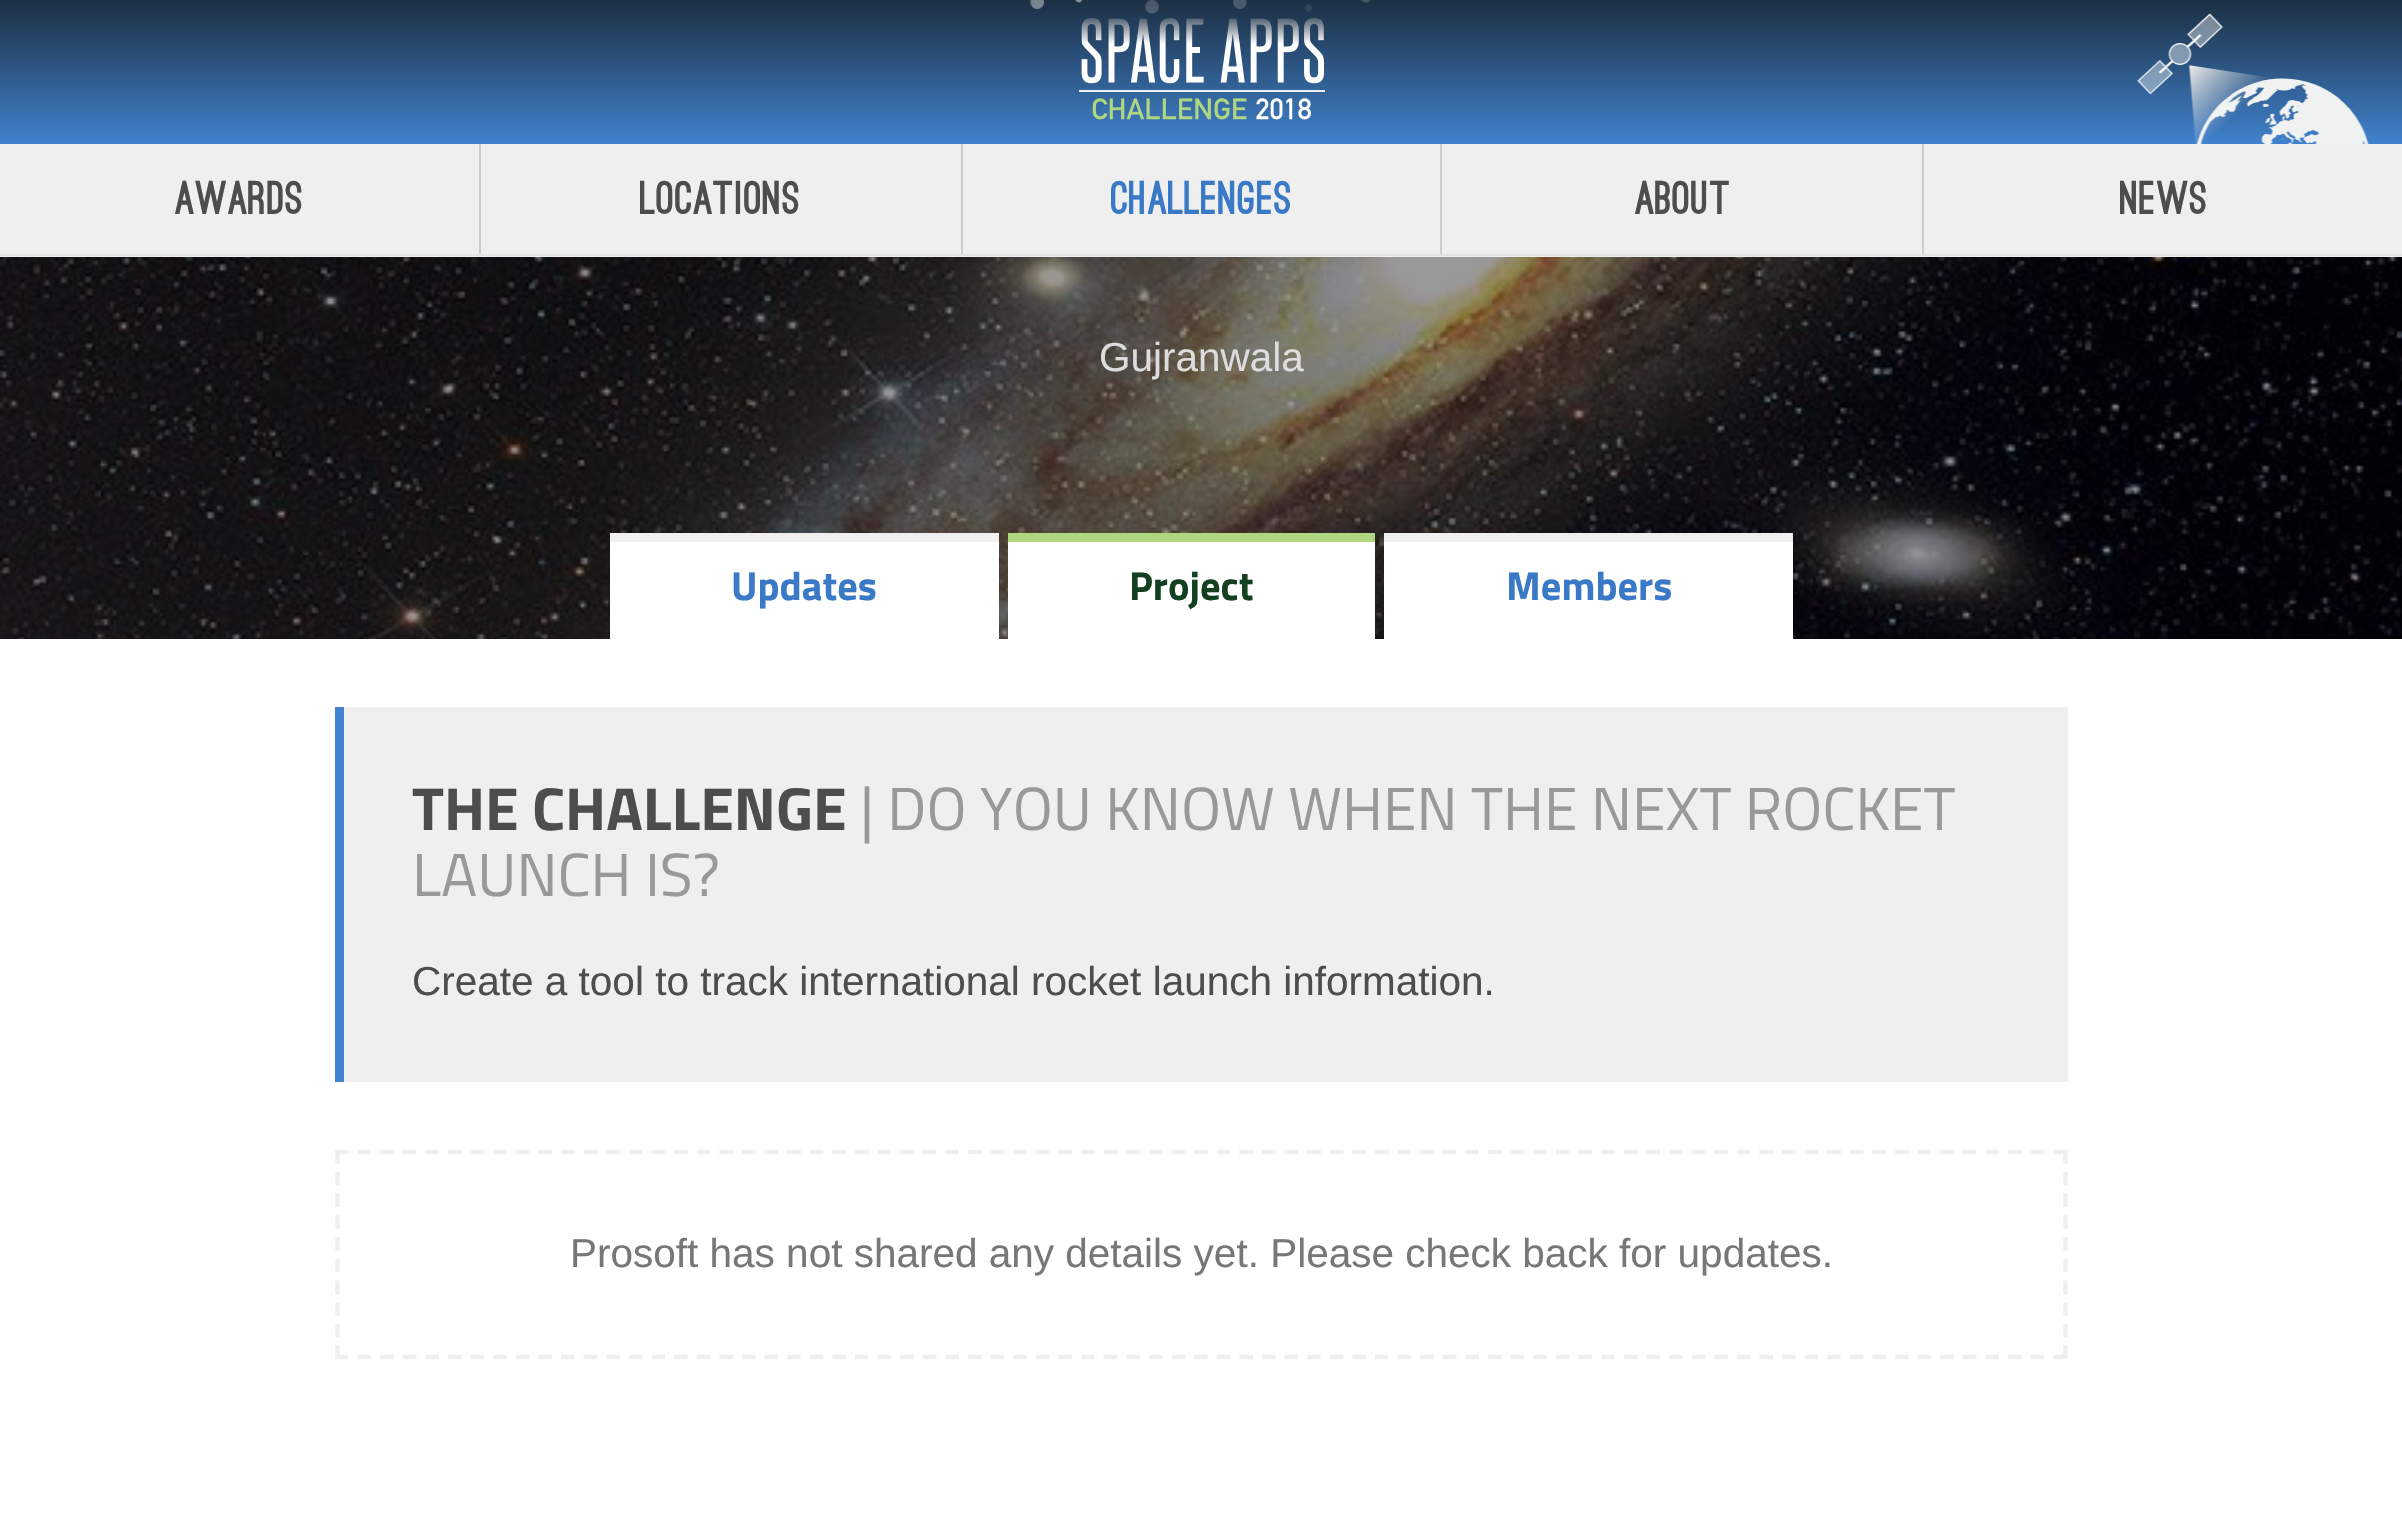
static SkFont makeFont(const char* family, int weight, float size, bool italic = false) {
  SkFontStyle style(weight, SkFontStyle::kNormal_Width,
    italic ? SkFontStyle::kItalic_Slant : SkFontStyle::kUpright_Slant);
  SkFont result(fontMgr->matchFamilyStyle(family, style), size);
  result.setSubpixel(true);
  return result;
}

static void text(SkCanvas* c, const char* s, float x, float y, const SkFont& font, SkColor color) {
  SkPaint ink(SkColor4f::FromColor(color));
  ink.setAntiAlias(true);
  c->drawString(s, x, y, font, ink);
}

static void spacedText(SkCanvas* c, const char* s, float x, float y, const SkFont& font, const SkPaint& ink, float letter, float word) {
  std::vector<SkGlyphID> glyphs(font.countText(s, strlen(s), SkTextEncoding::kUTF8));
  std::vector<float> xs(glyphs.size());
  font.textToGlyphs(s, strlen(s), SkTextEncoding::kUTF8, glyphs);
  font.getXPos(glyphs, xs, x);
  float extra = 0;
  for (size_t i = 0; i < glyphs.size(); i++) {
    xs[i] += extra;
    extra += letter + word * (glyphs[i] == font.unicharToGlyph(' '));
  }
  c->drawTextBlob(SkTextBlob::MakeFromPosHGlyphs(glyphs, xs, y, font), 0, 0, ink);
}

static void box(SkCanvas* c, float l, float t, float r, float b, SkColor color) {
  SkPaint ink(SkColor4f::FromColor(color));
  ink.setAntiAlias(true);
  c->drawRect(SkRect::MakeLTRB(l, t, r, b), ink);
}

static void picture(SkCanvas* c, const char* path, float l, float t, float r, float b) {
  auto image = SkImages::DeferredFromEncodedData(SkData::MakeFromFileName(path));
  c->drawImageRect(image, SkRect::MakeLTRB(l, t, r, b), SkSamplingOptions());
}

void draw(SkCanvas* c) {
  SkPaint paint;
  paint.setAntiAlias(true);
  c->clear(0xffffffff);
  box(c, 0, 144, 2402, 257, 0xffefefef);
  box(c, 0, 254, 2402, 256, 0xffe3e3e3);
  {
    const SkColor colors[] = {0xff4082cd, 0xff1c2f43};
    const float stops[] = {0, 1};
    const SkPoint ends[] = {{1202, 144}, {1202, 0}};
    paint.setShader(SkGradientShader::MakeLinear(ends, colors, stops, 2, SkTileMode::kClamp));
    paint.setAlpha(255);
  }
  c->drawRect(SkRect::MakeLTRB(0, 0, 2402, 144), paint);
  picture(c, "img_01.png", 1030, 0, 1371, 14);
  picture(c, "img_02.png", 1079, 18, 1325, 120);
  picture(c, "img_03.png", 2137, 13, 2369, 144);
  SkFont face1 = makeFont("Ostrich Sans", 900, 45);
  paint.setShader(nullptr);
  paint.setColor(0xff4d4d4d);
  spacedText(c, "Awards", 175, 214, face1, paint, 0.5f, 0);
  box(c, 479, 144, 481, 254, 0xffcccccc);
  spacedText(c, "Locations", 640, 214, face1, paint, 0.5f, 0);
  box(c, 961, 144, 963, 254, 0xffcccccc);
  paint.setColor(0xff3979c5);
  spacedText(c, "Challenges", 1111, 214, face1, paint, 0.5f, 0);
  box(c, 1440, 144, 1442, 254, 0xffcccccc);
  paint.setColor(0xff4d4d4d);
  spacedText(c, "About", 1635, 214, face1, paint, 0.5f, 0);
  box(c, 1922, 144, 1924, 254, 0xffcccccc);
  spacedText(c, "News", 2120, 214, face1, paint, 0.5f, 0);
  picture(c, "img_04.png", 0, 257, 2402, 639);
  SkFont face2 = makeFont("Liberation Sans", 400, 40.5f);
  text(c, "Gujranwala", 1099, 371, face2, 0xffdddddd);
  box(c, 610, 542, 999, 639, 0xffffffff);
  box(c, 610, 533, 999, 542, 0xffefefef);
  SkFont face3 = makeFont("Titillium Web", 700, 40.5f);
  text(c, "Updates", 731, 600, face3, 0xff3979c5);
  box(c, 1008, 542, 1375, 639, 0xffffffff);
  box(c, 1008, 533, 1375, 542, 0xffb0d681);
  text(c, "Project", 1129, 600, face3, 0xff134020);
  box(c, 1384, 542, 1793, 639, 0xffffffff);
  box(c, 1384, 533, 1793, 542, 0xffefefef);
  text(c, "Members", 1506, 600, face3, 0xff3979c5);
  box(c, 344, 707, 2068, 1082, 0xffefefef);
  box(c, 335, 707, 344, 1082, 0xff4282cf);
  SkFont face4 = makeFont("Titillium Web", 700, 60.75f);
  text(c, "THE CHALLENGE", 412, 830, face4, 0xff4d4d4d);
  SkFont face5 = makeFont("Titillium Web", 400, 60.75f);
  text(c, "| DO YOU KNOW WHEN THE NEXT ROCKET", 860, 830, face5, 0xff999999);
  text(c, "LAUNCH IS?", 412, 896, face5, 0xff999999);
  text(c, "Create a tool to track international rocket launch information.", 412, 995, face2, 0xff4d4d4d);
  paint.setStyle(SkPaint::kStroke_Style);
  paint.setStrokeWidth(4.5f);
  paint.setColor(0xffefefef);
  paint.setPathEffect(SkDashPathEffect::Make({{13.5f, 9.11f}}, 0));
  c->drawPath(SkPathBuilder().moveTo(335, 1152).lineTo(2068, 1152).detach(), paint);
  paint.setPathEffect(nullptr);
  paint.setPathEffect(SkDashPathEffect::Make({{13.5f, 8.26f}}, 0));
  c->drawPath(SkPathBuilder().moveTo(2065.5f, 1150).lineTo(2065.5f, 1359).detach(), paint);
  paint.setPathEffect(nullptr);
  paint.setPathEffect(SkDashPathEffect::Make({{13.5f, 9.11f}}, 0));
  c->drawPath(SkPathBuilder().moveTo(335, 1357).lineTo(2068, 1357).detach(), paint);
  paint.setPathEffect(nullptr);
  paint.setPathEffect(SkDashPathEffect::Make({{13.5f, 8.26f}}, 0));
  c->drawPath(SkPathBuilder().moveTo(337.5f, 1150).lineTo(337.5f, 1359).detach(), paint);
  paint.setPathEffect(nullptr);
  text(c, "Prosoft has not shared any details yet. Please check back for updates.", 570, 1267, face2, 0xff777777);
}
